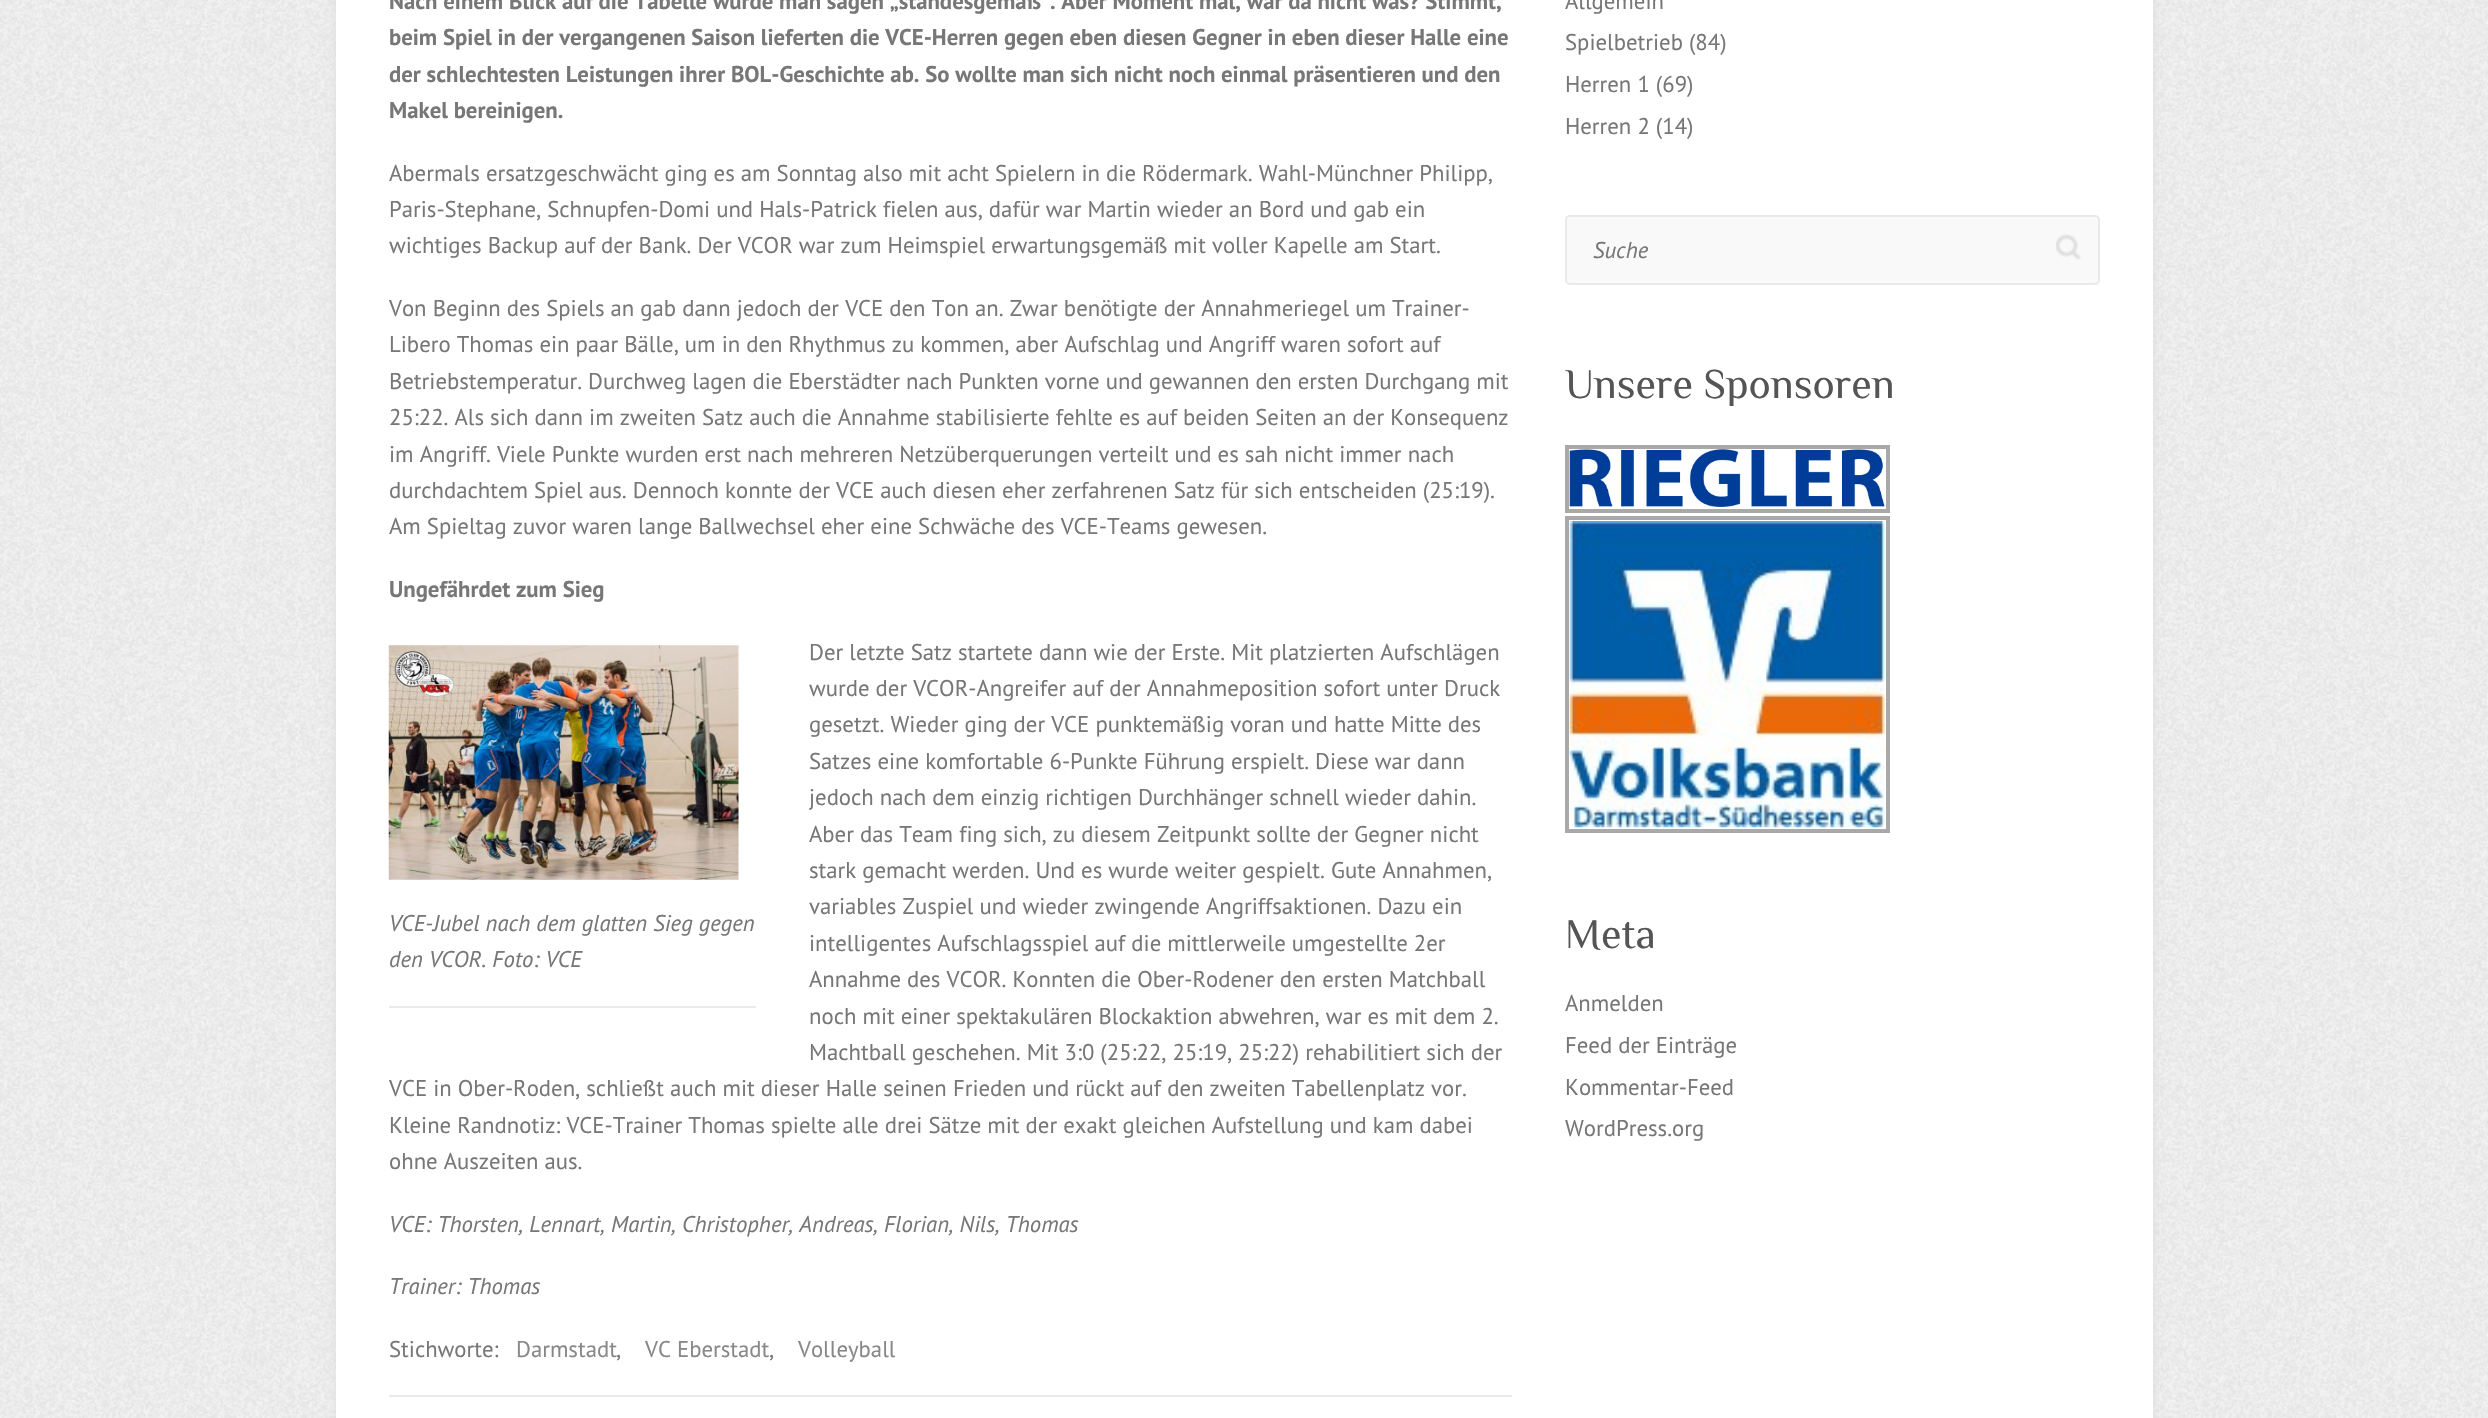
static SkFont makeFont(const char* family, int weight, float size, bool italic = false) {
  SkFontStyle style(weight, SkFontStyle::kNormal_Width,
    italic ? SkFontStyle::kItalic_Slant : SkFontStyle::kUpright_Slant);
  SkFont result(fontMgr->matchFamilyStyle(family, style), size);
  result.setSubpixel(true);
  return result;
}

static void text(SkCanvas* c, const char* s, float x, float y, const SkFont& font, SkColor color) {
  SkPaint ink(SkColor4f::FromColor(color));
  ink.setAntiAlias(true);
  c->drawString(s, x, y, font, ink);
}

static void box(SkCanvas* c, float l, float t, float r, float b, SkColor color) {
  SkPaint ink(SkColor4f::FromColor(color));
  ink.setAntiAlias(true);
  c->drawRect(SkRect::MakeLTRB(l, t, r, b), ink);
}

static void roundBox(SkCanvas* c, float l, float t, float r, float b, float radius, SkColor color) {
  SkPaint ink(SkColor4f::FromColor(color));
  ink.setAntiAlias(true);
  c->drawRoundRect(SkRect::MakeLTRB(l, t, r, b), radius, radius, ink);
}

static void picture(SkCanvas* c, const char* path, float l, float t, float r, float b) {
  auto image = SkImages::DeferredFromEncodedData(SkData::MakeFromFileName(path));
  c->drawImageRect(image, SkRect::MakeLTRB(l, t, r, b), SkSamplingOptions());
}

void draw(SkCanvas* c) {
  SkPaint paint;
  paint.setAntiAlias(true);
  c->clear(0xffffffff);
  picture(c, "img_01.png", 0, 0, 2488, 1418);
  paint.setColor(0xffdddddd);
  paint.setMaskFilter(SkMaskFilter::MakeBlur(kNormal_SkBlurStyle, 4.5f));
  c->drawRect(SkRect::MakeLTRB(336, -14, 2153, 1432), paint);
  paint.setMaskFilter(nullptr);
  box(c, 336, 0, 2153, 1418, 0xffffffff);
  SkFont face1 = makeFont("PT Sans", 700, 22.75f);
  text(c, "Nach einem Blick auf die Tabelle würde man sagen „standesgemäß“. Aber Moment mal, war da nicht was? Stimmt,", 389, 9, face1, 0xff777777);
  text(c, "beim Spiel in der vergangenen Saison lieferten die VCE-Herren gegen eben diesen Gegner in eben dieser Halle eine", 389, 45, face1, 0xff777777);
  text(c, "der schlechtesten Leistungen ihrer BOL-Geschichte ab. So wollte man sich nicht noch einmal präsentieren und den", 389, 82, face1, 0xff777777);
  text(c, "Makel bereinigen.", 389, 118, face1, 0xff777777);
  SkFont face2 = makeFont("PT Sans", 400, 22.75f);
  text(c, "Abermals ersatzgeschwächt ging es am Sonntag also mit acht Spielern in die Rödermark. Wahl-Münchner Philipp,", 389, 181, face2, 0xff777777);
  text(c, "Paris-Stephane, Schnupfen-Domi und Hals-Patrick fielen aus, dafür war Martin wieder an Bord und gab ein", 389, 217, face2, 0xff777777);
  text(c, "wichtiges Backup auf der Bank. Der VCOR war zum Heimspiel erwartungsgemäß mit voller Kapelle am Start.", 389, 253, face2, 0xff777777);
  text(c, "Von Beginn des Spiels an gab dann jedoch der VCE den Ton an. Zwar benötigte der Annahmeriegel um Trainer-", 389, 316, face2, 0xff777777);
  text(c, "Libero Thomas ein paar Bälle, um in den Rhythmus zu kommen, aber Aufschlag und Angriff waren sofort auf", 389, 352, face2, 0xff777777);
  text(c, "Betriebstemperatur. Durchweg lagen die Eberstädter nach Punkten vorne und gewannen den ersten Durchgang mit", 389, 389, face2, 0xff777777);
  text(c, "25:22. Als sich dann im zweiten Satz auch die Annahme stabilisierte fehlte es auf beiden Seiten an der Konsequenz", 389, 425, face2, 0xff777777);
  text(c, "im Angriff. Viele Punkte wurden erst nach mehreren Netzüberquerungen verteilt und es sah nicht immer nach", 389, 462, face2, 0xff777777);
  text(c, "durchdachtem Spiel aus. Dennoch konnte der VCE auch diesen eher zerfahrenen Satz für sich entscheiden (25:19).", 389, 498, face2, 0xff777777);
  text(c, "Am Spieltag zuvor waren lange Ballwechsel eher eine Schwäche des VCE-Teams gewesen.", 389, 534, face2, 0xff777777);
  text(c, "Ungefährdet zum Sieg", 389, 597, face1, 0xff777777);
  text(c, "Der letzte Satz startete dann wie der Erste. Mit platzierten Aufschlägen", 809, 660, face2, 0xff777777);
  text(c, "wurde der VCOR-Angreifer auf der Annahmeposition sofort unter Druck", 809, 696, face2, 0xff777777);
  text(c, "gesetzt. Wieder ging der VCE punktemäßig voran und hatte Mitte des", 809, 732, face2, 0xff777777);
  text(c, "Satzes eine komfortable 6-Punkte Führung erspielt. Diese war dann", 809, 769, face2, 0xff777777);
  text(c, "jedoch nach dem einzig richtigen Durchhänger schnell wieder dahin.", 809, 805, face2, 0xff777777);
  text(c, "Aber das Team fing sich, zu diesem Zeitpunkt sollte der Gegner nicht", 809, 842, face2, 0xff777777);
  text(c, "stark gemacht werden. Und es wurde weiter gespielt. Gute Annahmen,", 809, 878, face2, 0xff777777);
  text(c, "variables Zuspiel und wieder zwingende Angriffsaktionen. Dazu ein", 809, 914, face2, 0xff777777);
  text(c, "intelligentes Aufschlagsspiel auf die mittlerweile umgestellte 2er", 809, 951, face2, 0xff777777);
  text(c, "Annahme des VCOR. Konnten die Ober-Rodener den ersten Matchball", 809, 987, face2, 0xff777777);
  text(c, "noch mit einer spektakulären Blockaktion abwehren, war es mit dem 2.", 809, 1024, face2, 0xff777777);
  text(c, "Machtball geschehen. Mit 3:0 (25:22, 25:19, 25:22) rehabilitiert sich der", 809, 1060, face2, 0xff777777);
  text(c, "VCE in Ober-Roden, schließt auch mit dieser Halle seinen Frieden und rückt auf den zweiten Tabellenplatz vor.", 389, 1096, face2, 0xff777777);
  text(c, "Kleine Randnotiz: VCE-Trainer Thomas spielte alle drei Sätze mit der exakt gleichen Aufstellung und kam dabei", 389, 1133, face2, 0xff777777);
  text(c, "ohne Auszeiten aus.", 389, 1169, face2, 0xff777777);
  picture(c, "img_02.png", 388, 645, 739, 880);
  box(c, 389, 1006, 756, 1008, 0xffeaeaea);
  SkFont face3 = makeFont("PT Sans", 400, 22.75f, true);
  text(c, "VCE-Jubel nach dem glatten Sieg gegen", 389, 931, face3, 0xff777777);
  text(c, "den VCOR. Foto: VCE", 389, 967, face3, 0xff777777);
  text(c, "VCE: Thorsten, Lennart, Martin, Christopher, Andreas, Florian, Nils, Thomas", 389, 1232, face3, 0xff777777);
  text(c, "Trainer: Thomas", 389, 1294, face3, 0xff777777);
  text(c, "Stichworte:", 389, 1357, face2, 0xff777777);
  text(c, "Darmstadt", 516, 1357, face2, 0xff888888);
  text(c, ",", 616, 1357, face2, 0xff777777);
  text(c, "VC Eberstadt", 645, 1357, face2, 0xff888888);
  text(c, ",", 769, 1357, face2, 0xff777777);
  text(c, "Volleyball", 798, 1357, face2, 0xff888888);
  box(c, 389, 1395, 1512, 1397, 0xffeaeaea);
  text(c, "Allgemein", 1565, 9, face2, 0xff777777);
  text(c, "Spielbetrieb (84)", 1565, 50, face2, 0xff777777);
  text(c, "Herren 1 (69)", 1565, 92, face2, 0xff777777);
  text(c, "Herren 2 (14)", 1565, 134, face2, 0xff777777);
  roundBox(c, 1565, 215, 2100, 285, 5, 0xfff9f9f9);
  picture(c, "img_03.png", 2056, 234, 2081, 260);
  paint.setStyle(SkPaint::kStroke_Style);
  paint.setStrokeWidth(2);
  paint.setColor(0xffeaeaea);
  c->drawRoundRect(SkRect::MakeLTRB(1566, 216, 2099, 284), 4, 4, paint);
  text(c, "Suche", 1593, 258, face3, 0xff777777);
  SkFont face4 = makeFont("Philosopher", 400, 42);
  text(c, "Unsere Sponsoren", 1565, 398, face4, 0xff555555);
  paint.setStrokeWidth(4);
  paint.setColor(0xffa9a9a9);
  c->drawRect(SkRect::MakeLTRB(1567, 447, 1888, 511), paint);
  picture(c, "img_04.png", 1569, 449, 1885, 507);
  c->drawRect(SkRect::MakeLTRB(1567, 518, 1888, 831), paint);
  picture(c, "img_05.png", 1569, 521, 1885, 828);
  text(c, "Meta", 1565, 948, face4, 0xff555555);
  text(c, "Anmelden", 1565, 1011, face2, 0xff777777);
  text(c, "Feed der Einträge", 1565, 1053, face2, 0xff777777);
  text(c, "Kommentar-Feed", 1565, 1095, face2, 0xff777777);
  text(c, "WordPress.org", 1565, 1136, face2, 0xff777777);
}
